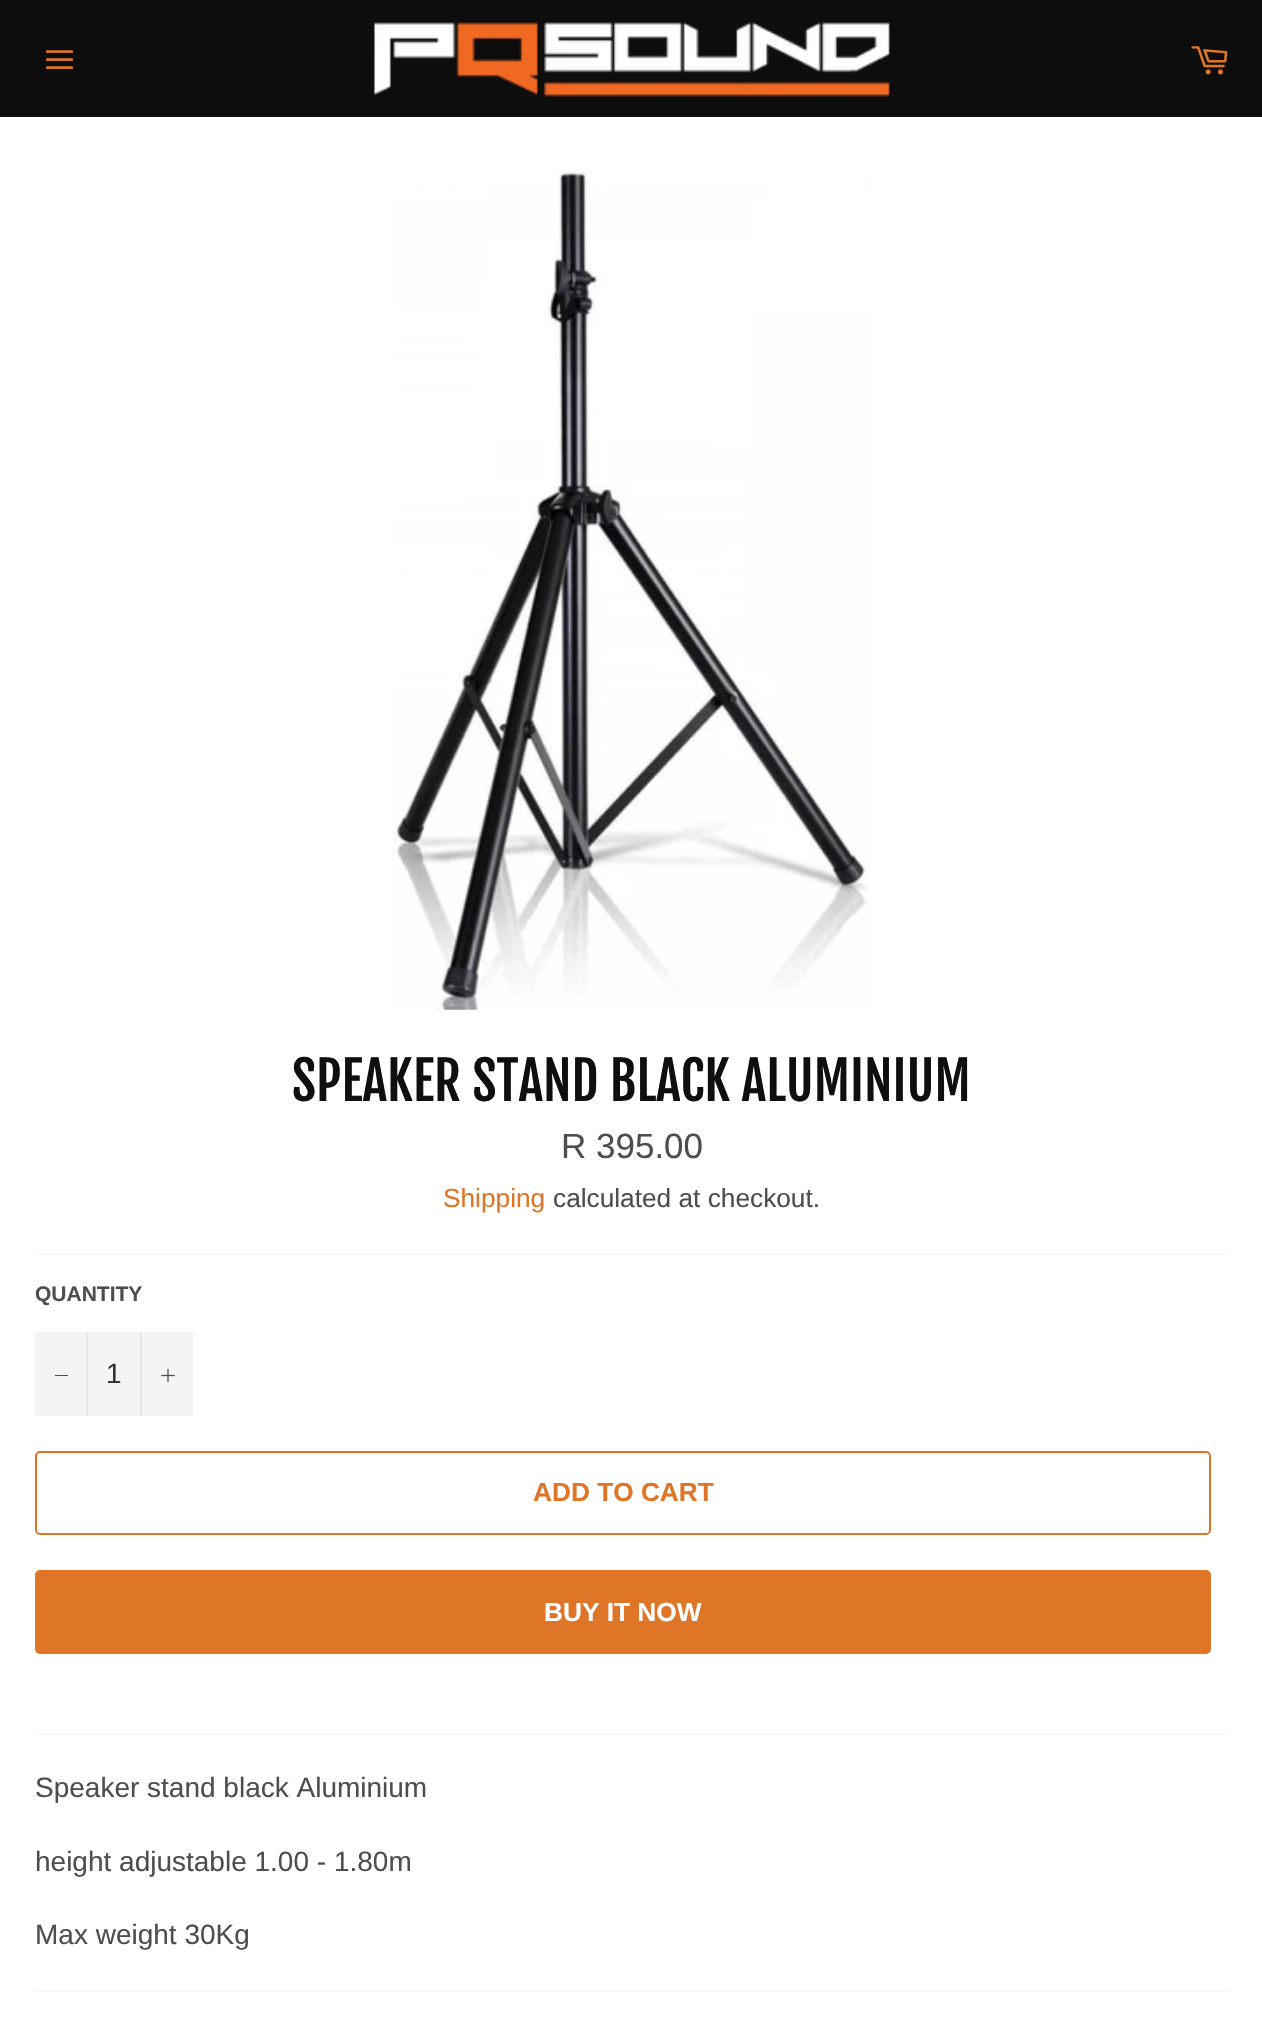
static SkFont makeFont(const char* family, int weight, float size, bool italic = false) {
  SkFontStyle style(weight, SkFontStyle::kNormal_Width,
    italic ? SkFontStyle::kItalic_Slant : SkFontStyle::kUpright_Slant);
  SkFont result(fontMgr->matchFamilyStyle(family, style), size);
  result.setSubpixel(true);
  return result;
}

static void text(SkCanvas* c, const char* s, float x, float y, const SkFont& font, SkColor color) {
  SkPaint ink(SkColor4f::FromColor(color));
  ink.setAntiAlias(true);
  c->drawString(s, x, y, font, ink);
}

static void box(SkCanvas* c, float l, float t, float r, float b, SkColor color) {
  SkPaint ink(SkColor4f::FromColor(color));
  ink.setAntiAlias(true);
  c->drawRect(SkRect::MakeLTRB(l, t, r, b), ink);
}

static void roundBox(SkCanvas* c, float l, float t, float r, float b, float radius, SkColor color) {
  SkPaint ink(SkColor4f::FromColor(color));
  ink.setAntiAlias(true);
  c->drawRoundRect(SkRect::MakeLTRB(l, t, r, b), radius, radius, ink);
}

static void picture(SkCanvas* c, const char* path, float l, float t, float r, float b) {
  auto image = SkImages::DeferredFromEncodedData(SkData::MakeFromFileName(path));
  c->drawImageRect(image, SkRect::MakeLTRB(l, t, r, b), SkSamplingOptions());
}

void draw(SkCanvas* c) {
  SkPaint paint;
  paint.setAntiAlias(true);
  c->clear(0xff0d0d0d);
  picture(c, "img_01.png", 46, 50, 73, 69);
  picture(c, "img_02.png", 373, 22, 890, 97);
  picture(c, "img_03.png", 1191, 46, 1228, 75);
  box(c, 0, 117, 1262, 2026, 0xffffffff);
  picture(c, "img_04.png", 394, 170, 870, 1010);
  SkFont face1 = makeFont("Fjalla One", 400, 52.5f);
  text(c, "SPEAKER STAND BLACK ALUMINIUM", 292, 1101, face1, 0xff0f0f0f);
  SkFont face2 = makeFont("Liberation Sans", 400, 35);
  text(c, "R 395.00", 561, 1158, face2, 0xff4e4e4e);
  SkFont face3 = makeFont("Liberation Sans", 400, 26.25f);
  text(c, "Shipping", 443, 1207, face3, 0xffdf7527);
  text(c, "calculated at checkout.", 553, 1207, face3, 0xff4e4e4e);
  box(c, 35, 1253, 1229, 1255, 0xfff8f8f8);
  SkFont face4 = makeFont("Liberation Sans", 700, 21);
  text(c, "QUANTITY", 35, 1301, face4, 0xff4e4e4e);
  box(c, 35, 1332, 193, 1416, 0xfff4f4f4);
  box(c, 86, 1332, 88, 1416, 0xffe7e7e7);
  box(c, 55, 1375, 68, 1376, 0xff4e4e4e);
  SkFont face5 = makeFont("Liberation Sans", 400, 28);
  text(c, "1", 106, 1383, face5, 0xff333333);
  box(c, 140, 1332, 142, 1416, 0xffe7e7e7);
  picture(c, "img_05.png", 161, 1369, 175, 1383);
  paint.setStyle(SkPaint::kStroke_Style);
  paint.setStrokeWidth(2);
  paint.setColor(0xffdf7527);
  c->drawRoundRect(SkRect::MakeLTRB(36, 1452, 1210, 1534), 4, 4, paint);
  SkFont face6 = makeFont("Liberation Sans", 700, 26.25f);
  text(c, "ADD TO CART", 533, 1501, face6, 0xffdf7527);
  roundBox(c, 35, 1570, 1211, 1654, 5, 0xffdf7527);
  text(c, "BUY IT NOW", 544, 1621, face6, 0xffffffff);
  box(c, 35, 1733, 1229, 1735, 0xfff8f8f8);
  text(c, "Speaker stand black Aluminium", 35, 1797, face5, 0xff4e4e4e);
  text(c, "height adjustable 1.00 - 1.80m", 35, 1871, face5, 0xff4e4e4e);
  text(c, "Max weight 30Kg", 35, 1944, face5, 0xff4e4e4e);
  box(c, 35, 1990, 1229, 1992, 0xfff8f8f8);
}
